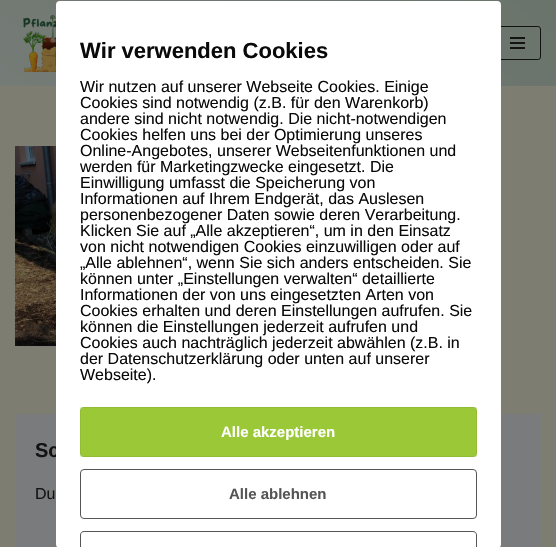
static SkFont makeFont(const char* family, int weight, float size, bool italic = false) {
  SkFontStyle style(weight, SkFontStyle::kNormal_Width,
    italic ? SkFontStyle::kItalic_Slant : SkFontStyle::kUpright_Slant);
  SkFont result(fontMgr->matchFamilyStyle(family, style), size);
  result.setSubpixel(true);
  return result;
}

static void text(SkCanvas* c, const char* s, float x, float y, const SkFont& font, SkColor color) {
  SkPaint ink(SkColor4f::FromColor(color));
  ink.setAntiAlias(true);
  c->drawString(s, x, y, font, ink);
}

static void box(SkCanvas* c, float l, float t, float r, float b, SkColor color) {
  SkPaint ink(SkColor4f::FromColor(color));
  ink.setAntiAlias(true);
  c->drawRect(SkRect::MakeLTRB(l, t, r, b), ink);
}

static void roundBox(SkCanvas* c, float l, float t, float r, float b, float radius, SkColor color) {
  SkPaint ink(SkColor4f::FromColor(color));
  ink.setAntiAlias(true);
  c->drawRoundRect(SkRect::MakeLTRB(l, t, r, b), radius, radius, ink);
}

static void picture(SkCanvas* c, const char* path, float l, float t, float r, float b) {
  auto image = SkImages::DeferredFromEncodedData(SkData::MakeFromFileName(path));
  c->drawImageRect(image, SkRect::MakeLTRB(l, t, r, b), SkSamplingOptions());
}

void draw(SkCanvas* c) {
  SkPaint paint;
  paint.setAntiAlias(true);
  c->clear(0xff7e7d71);
  {
    const SkColor colors[] = {0xff757b76, 0xff6a746b};
    const float stops[] = {0, 1};
    const SkPoint ends[] = {{147, 205}, {409, -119}};
    paint.setShader(SkGradientShader::MakeLinear(ends, colors, stops, 2, SkTileMode::kClamp));
    paint.setAlpha(255);
  }
  c->drawRect(SkRect::MakeLTRB(0, 0, 556, 86), paint);
  picture(c, "img_01.png", 23, 15, 56, 72);
  paint.setStyle(SkPaint::kStroke_Style);
  paint.setStrokeWidth(1);
  paint.setShader(nullptr);
  paint.setColor(0xff141313);
  c->drawRoundRect(SkRect::MakeLTRB(494.5f, 26.5f, 540.5f, 59.5f), 2.5f, 2.5f, paint);
  box(c, 510, 37, 525, 39, 0xff141313);
  box(c, 510, 42, 525, 44, 0xff141313);
  box(c, 510, 47, 525, 49, 0xff141313);
  picture(c, "img_02.png", 15, 146, 56, 346);
  box(c, 15, 414, 541, 547, 0xff7a7b7c);
  SkFont face1 = makeFont("Liberation Sans", 700, 20);
  text(c, "Sc", 35, 457, face1, 0xff141313);
  SkFont face2 = makeFont("Liberation Sans", 400, 16);
  text(c, "Du", 35, 499, face2, 0xff141313);
  roundBox(c, 56, 1, 501, 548, 4, 0xffffffff);
  SkFont face3 = makeFont("Liberation Sans", 700, 22);
  text(c, "Wir verwenden Cookies", 80, 58, face3, 0xff0a0a0a);
  text(c, "Wir nutzen auf unserer Webseite Cookies. Einige", 80, 92, face2, 0xff0a0a0a);
  text(c, "Cookies sind notwendig (z.B. für den Warenkorb)", 80, 108, face2, 0xff0a0a0a);
  text(c, "andere sind nicht notwendig. Die nicht-notwendigen", 80, 124, face2, 0xff0a0a0a);
  text(c, "Cookies helfen uns bei der Optimierung unseres", 80, 140, face2, 0xff0a0a0a);
  text(c, "Online-Angebotes, unserer Webseitenfunktionen und", 80, 156, face2, 0xff0a0a0a);
  text(c, "werden für Marketingzwecke eingesetzt. Die", 80, 172, face2, 0xff0a0a0a);
  text(c, "Einwilligung umfasst die Speicherung von", 80, 188, face2, 0xff0a0a0a);
  text(c, "Informationen auf Ihrem Endgerät, das Auslesen", 80, 204, face2, 0xff0a0a0a);
  text(c, "personenbezogener Daten sowie deren Verarbeitung.", 80, 220, face2, 0xff0a0a0a);
  text(c, "Klicken Sie auf „Alle akzeptieren“, um in den Einsatz", 80, 236, face2, 0xff0a0a0a);
  text(c, "von nicht notwendigen Cookies einzuwilligen oder auf", 80, 252, face2, 0xff0a0a0a);
  text(c, "„Alle ablehnen“, wenn Sie sich anders entscheiden. Sie", 80, 268, face2, 0xff0a0a0a);
  text(c, "können unter „Einstellungen verwalten“ detaillierte", 80, 284, face2, 0xff0a0a0a);
  text(c, "Informationen der von uns eingesetzten Arten von", 80, 300, face2, 0xff0a0a0a);
  text(c, "Cookies erhalten und deren Einstellungen aufrufen. Sie", 80, 316, face2, 0xff0a0a0a);
  text(c, "können die Einstellungen jederzeit aufrufen und", 80, 332, face2, 0xff0a0a0a);
  text(c, "Cookies auch nachträglich jederzeit abwählen (z.B. in", 80, 348, face2, 0xff0a0a0a);
  text(c, "der Datenschutzerklärung oder unten auf unserer", 80, 364, face2, 0xff0a0a0a);
  text(c, "Webseite).", 80, 380, face2, 0xff0a0a0a);
  roundBox(c, 80, 407, 477, 457, 4, 0xff9ac836);
  paint.setColor(0x0f000000);
  c->drawRect(SkRect::MakeLTRB(80.5f, 407.5f, 476.5f, 456.5f), paint);
  SkFont face4 = makeFont("Liberation Sans", 700, 15);
  text(c, "Alle akzeptieren", 221, 437, face4, 0xffffffff);
  paint.setColor(0xff555555);
  c->drawRoundRect(SkRect::MakeLTRB(80.5f, 469.5f, 476.5f, 518.5f), 3.5f, 3.5f, paint);
  text(c, "Alle ablehnen", 229, 499, face4, 0xff555555);
  paint.setStyle(SkPaint::kFill_Style);
  c->drawPath(SkPathBuilder().moveTo(84, 531).cubicTo(82, 531, 80, 533, 80, 535).lineTo(80, 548).lineTo(81, 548).lineTo(81, 535).cubicTo(81, 533, 82, 532, 84, 532).lineTo(473, 532).cubicTo(475, 532, 476, 533, 476, 535).lineTo(476, 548).lineTo(477, 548).lineTo(477, 535).cubicTo(477, 533, 475, 531, 473, 531).close().detach(), paint);
}
